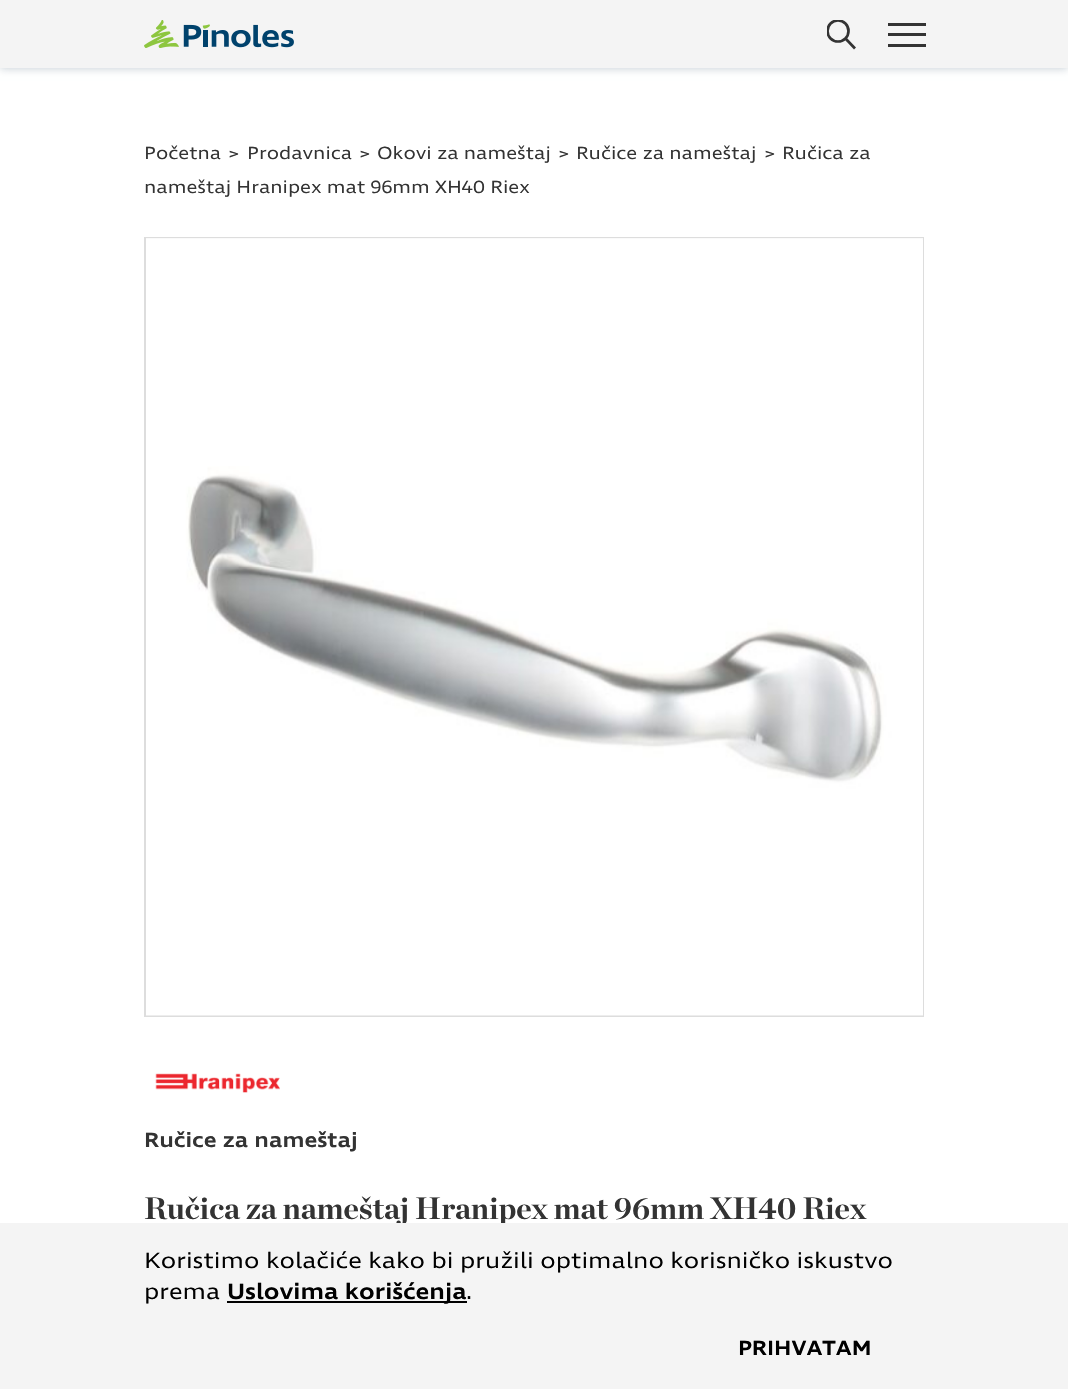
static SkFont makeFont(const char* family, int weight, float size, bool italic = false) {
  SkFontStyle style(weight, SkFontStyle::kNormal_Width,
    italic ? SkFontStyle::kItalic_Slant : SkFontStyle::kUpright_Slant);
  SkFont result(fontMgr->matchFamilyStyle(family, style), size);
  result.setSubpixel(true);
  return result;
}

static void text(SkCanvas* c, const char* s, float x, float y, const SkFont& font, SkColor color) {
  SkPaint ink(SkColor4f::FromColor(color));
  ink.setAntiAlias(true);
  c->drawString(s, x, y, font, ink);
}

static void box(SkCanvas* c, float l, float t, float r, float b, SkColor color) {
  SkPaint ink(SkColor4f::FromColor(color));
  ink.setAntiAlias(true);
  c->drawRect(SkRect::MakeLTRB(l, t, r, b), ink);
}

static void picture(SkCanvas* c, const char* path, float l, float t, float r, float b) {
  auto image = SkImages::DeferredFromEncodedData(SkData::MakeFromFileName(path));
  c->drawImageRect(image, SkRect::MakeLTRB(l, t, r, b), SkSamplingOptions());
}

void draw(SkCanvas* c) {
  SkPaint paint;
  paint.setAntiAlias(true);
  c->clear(0xffffffff);
  paint.setColor(0x33002340);
  paint.setMaskFilter(SkMaskFilter::MakeBlur(kNormal_SkBlurStyle, 4));
  c->drawRect(SkRect::MakeLTRB(0, 2, 1068, 69), paint);
  paint.setMaskFilter(nullptr);
  box(c, 0, 0, 1068, 68, 0xfff4f4f4);
  picture(c, "img_01.png", 144, 20, 294, 48);
  c->save();
  c->clipRect(SkRect::MakeLTRB(827, 20, 857, 51));
  paint.setStyle(SkPaint::kStroke_Style);
  paint.setStrokeWidth(2.7f);
  paint.setColor(0xff333333);
  c->drawCircle(838, 31, 10.5f, paint);
  c->restore();
  c->drawPath(SkPathBuilder().moveTo(845.5f, 38.5f).lineTo(855, 48.5f).detach(), paint);
  box(c, 888, 23, 926, 26, 0xff333333);
  box(c, 888, 33, 926, 36, 0xff333333);
  box(c, 888, 44, 926, 47, 0xff333333);
  SkFont face1 = makeFont("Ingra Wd", 400, 18);
  text(c, "Početna", 144, 159, face1, 0xff333333);
  text(c, ">", 228, 159, face1, 0xff333333);
  text(c, "Prodavnica", 247, 159, face1, 0xff333333);
  text(c, ">", 359, 159, face1, 0xff333333);
  text(c, "Okovi za nameštaj", 377, 159, face1, 0xff333333);
  text(c, ">", 558, 159, face1, 0xff333333);
  text(c, "Ručice za nameštaj", 576, 159, face1, 0xff333333);
  text(c, ">", 764, 159, face1, 0xff333333);
  text(c, "Ručica za", 782, 159, face1, 0xff333333);
  text(c, "nameštaj Hranipex mat 96mm XH40 Riex", 144, 193, face1, 0xff333333);
  paint.setStrokeWidth(2);
  paint.setColor(0xffdddddd);
  c->drawRect(SkRect::MakeLTRB(145, 238, 923, 1016), paint);
  picture(c, "img_02.png", 146, 238, 923, 1016);
  picture(c, "img_03.png", 155, 1073, 280, 1093);
  SkFont face2 = makeFont("Ingra Wd", 600, 21);
  text(c, "Ručice za nameštaj", 144, 1147, face2, 0xff333333);
  SkFont face3 = makeFont("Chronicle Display", 700, 30.9f);
  text(c, "Ručica za nameštaj Hranipex mat 96mm XH40 Riex", 144, 1219, face3, 0xff333333);
  box(c, 0, 1223, 1068, 1389, 0xfff4f4f4);
  SkFont face4 = makeFont("Ingra Wd", 400, 22.5f);
  text(c, "Koristimo kolačiće kako bi pružili optimalno korisničko iskustvo", 144, 1268, face4, 0xff000000);
  text(c, "prema", 144, 1299, face4, 0xff000000);
  box(c, 227, 1301, 467, 1303, 0xff000000);
  SkFont face5 = makeFont("Ingra Wd", 600, 22.5f);
  text(c, "Uslovima korišćenja", 227, 1299, face5, 0xff000000);
  text(c, ".", 466, 1299, face4, 0xff000000);
  text(c, "PRIHVATAM", 738, 1355, face2, 0xff000000);
}
